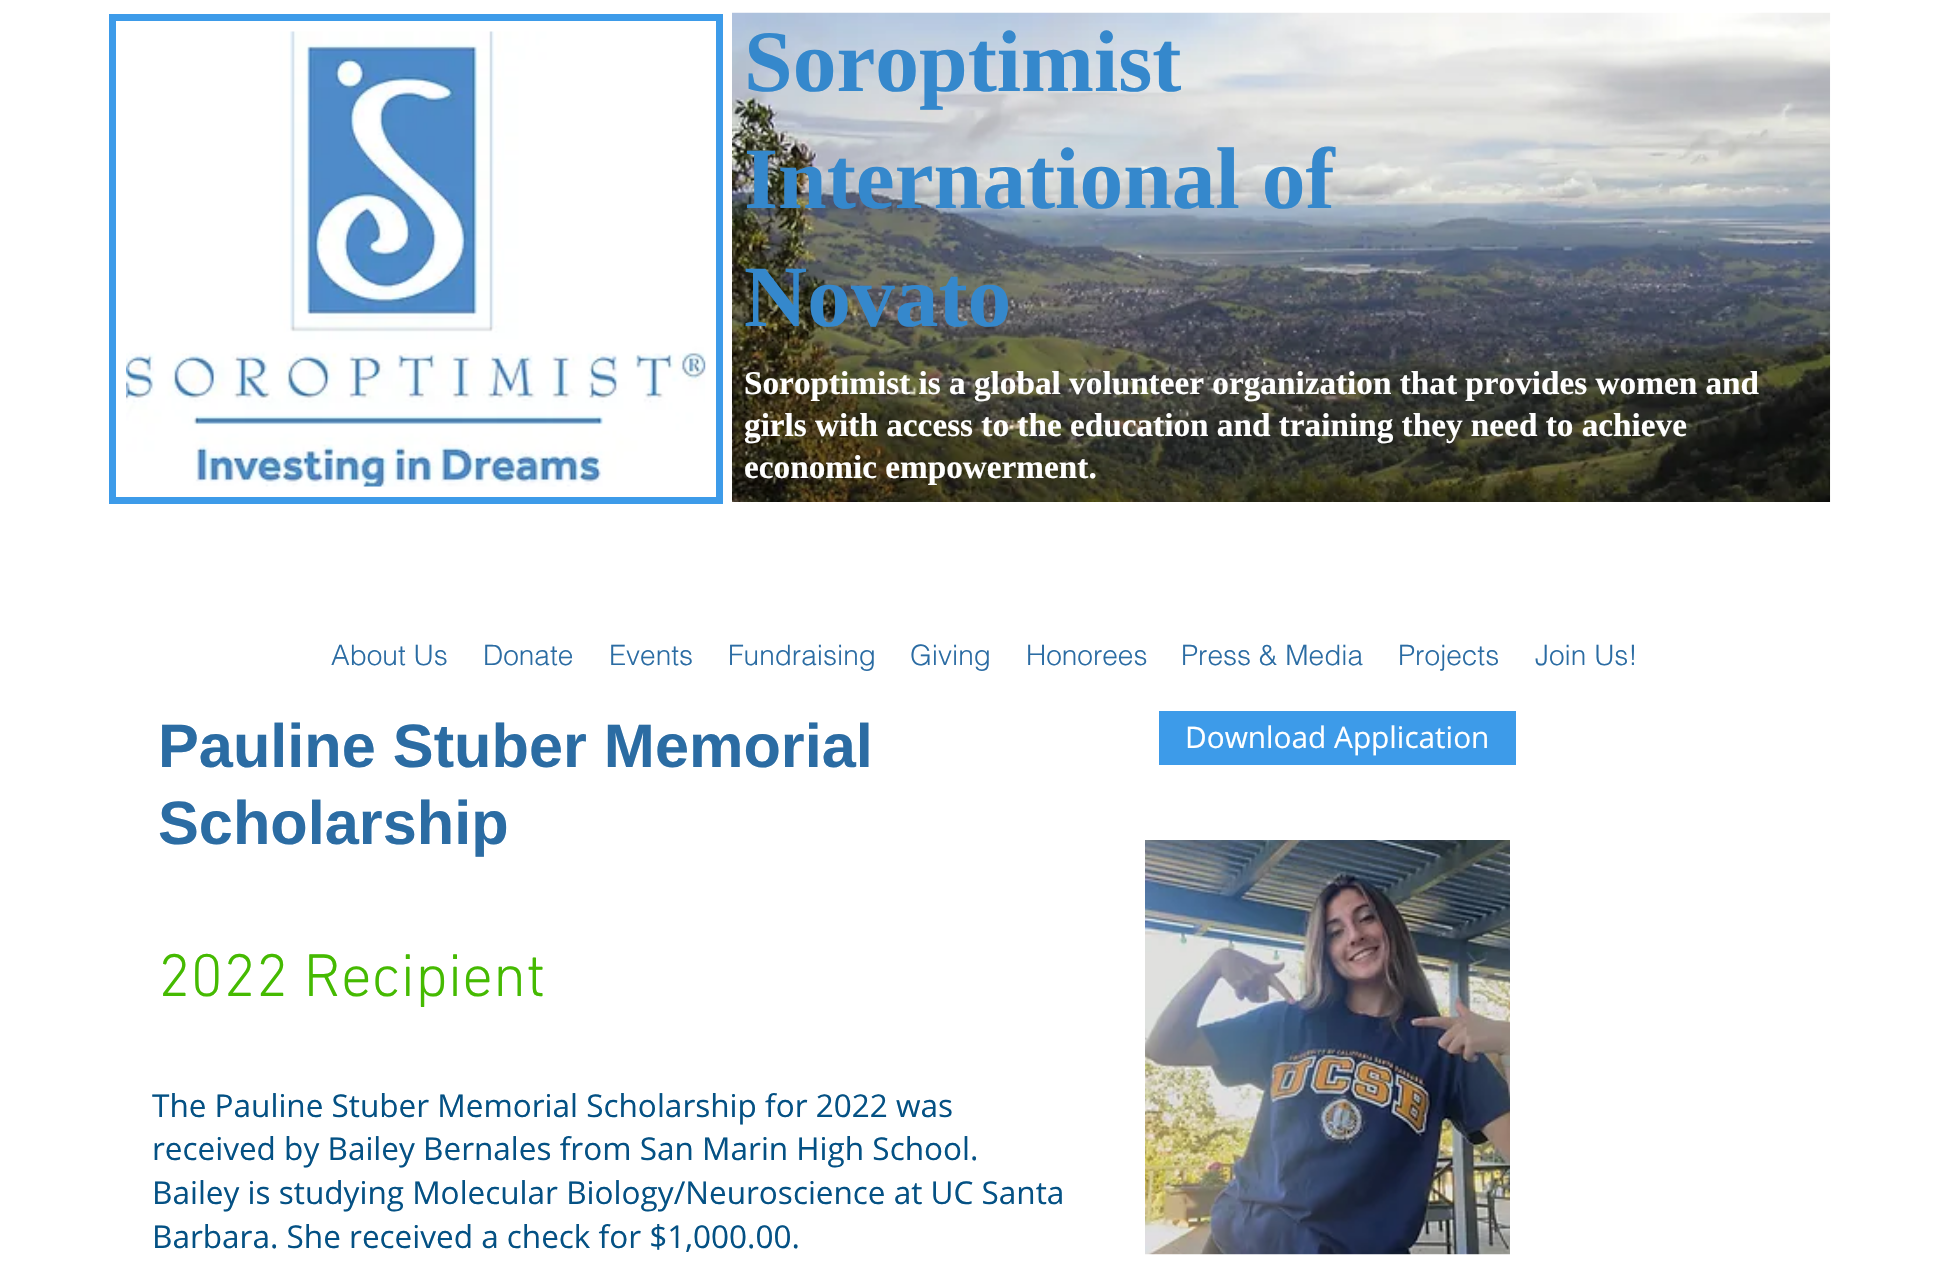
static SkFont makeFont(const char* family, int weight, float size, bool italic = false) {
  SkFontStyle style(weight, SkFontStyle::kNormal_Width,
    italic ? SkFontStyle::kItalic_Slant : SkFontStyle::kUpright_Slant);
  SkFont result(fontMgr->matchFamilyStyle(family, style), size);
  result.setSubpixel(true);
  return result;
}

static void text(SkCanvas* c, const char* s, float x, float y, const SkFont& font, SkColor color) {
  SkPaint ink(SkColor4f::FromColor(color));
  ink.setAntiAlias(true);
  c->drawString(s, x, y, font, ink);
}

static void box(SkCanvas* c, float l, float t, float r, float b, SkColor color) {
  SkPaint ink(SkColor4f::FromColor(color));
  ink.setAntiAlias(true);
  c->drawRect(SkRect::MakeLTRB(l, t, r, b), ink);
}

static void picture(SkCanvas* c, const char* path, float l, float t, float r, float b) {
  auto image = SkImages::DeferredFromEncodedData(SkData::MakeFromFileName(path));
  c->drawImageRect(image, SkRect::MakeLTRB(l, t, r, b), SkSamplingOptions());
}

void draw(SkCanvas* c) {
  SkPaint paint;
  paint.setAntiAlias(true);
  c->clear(0xffffffff);
  paint.setStyle(SkPaint::kStroke_Style);
  paint.setStrokeWidth(7);
  paint.setColor(0xff3d9be9);
  c->drawRect(SkRect::MakeLTRB(112.5f, 17.5f, 719.5f, 500.5f), paint);
  picture(c, "img_01.png", 126, 31, 706, 487);
  picture(c, "img_02.png", 732, 12, 1831, 502);
  SkFont face1 = makeFont("Liberation Serif", 700, 87.5f);
  text(c, "Soroptimist", 744, 91, face1, 0xff3588cc);
  text(c, "International of", 744, 208, face1, 0xff3588cc);
  text(c, "Novato", 744, 326, face1, 0xff3588cc);
  SkFont face2 = makeFont("Liberation Serif", 700, 33.25f);
  text(c, "Soroptimist is a global volunteer organization that provides women and", 744, 394, face2, 0xffffffff);
  text(c, "girls with access to the education and training they need to achieve", 744, 436, face2, 0xffffffff);
  text(c, "economic empowerment.", 744, 478, face2, 0xffffffff);
  SkFont face3 = makeFont("helvetica", 300, 28);
  text(c, "About Us", 331, 665, face3, 0xff2b6ca3);
  text(c, "Donate", 483, 665, face3, 0xff2b6ca3);
  text(c, "Events", 609, 665, face3, 0xff2b6ca3);
  text(c, "Fundraising", 728, 665, face3, 0xff2b6ca3);
  text(c, "Giving", 910, 665, face3, 0xff2b6ca3);
  text(c, "Honorees", 1026, 665, face3, 0xff2b6ca3);
  text(c, "Press & Media", 1181, 665, face3, 0xff2b6ca3);
  text(c, "Projects", 1398, 665, face3, 0xff2b6ca3);
  text(c, "Join Us!", 1535, 665, face3, 0xff2b6ca3);
  SkFont face4 = makeFont("Liberation Sans", 700, 61.25f);
  text(c, "Pauline Stuber Memorial", 158, 767, face4, 0xff2b6ca3);
  text(c, "Scholarship", 158, 844, face4, 0xff2b6ca3);
  box(c, 1159, 711, 1516, 765, 0xff3d9be9);
  SkFont face5 = makeFont("Open Sans", 400, 29.75f);
  text(c, "Download Application", 1185, 748, face5, 0xffffffff);
  SkFont face6 = makeFont("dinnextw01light", 300, 61.25f);
  text(c, "2022 Recipient", 158, 996, face6, 0xff45ba01);
  picture(c, "img_03.png", 1145, 840, 1510, 1255);
  SkFont face7 = makeFont("Open Sans", 400, 31.5f);
  text(c, "The Pauline Stuber Memorial Scholarship for 2022 was", 152, 1117, face7, 0xff045184);
  text(c, "received by Bailey Bernales from San Marin High School.", 152, 1160, face7, 0xff045184);
  text(c, "Bailey is studying Molecular Biology/Neuroscience at UC Santa", 152, 1204, face7, 0xff045184);
  text(c, "Barbara. She received a check for $1,000.00.", 152, 1248, face7, 0xff045184);
}
